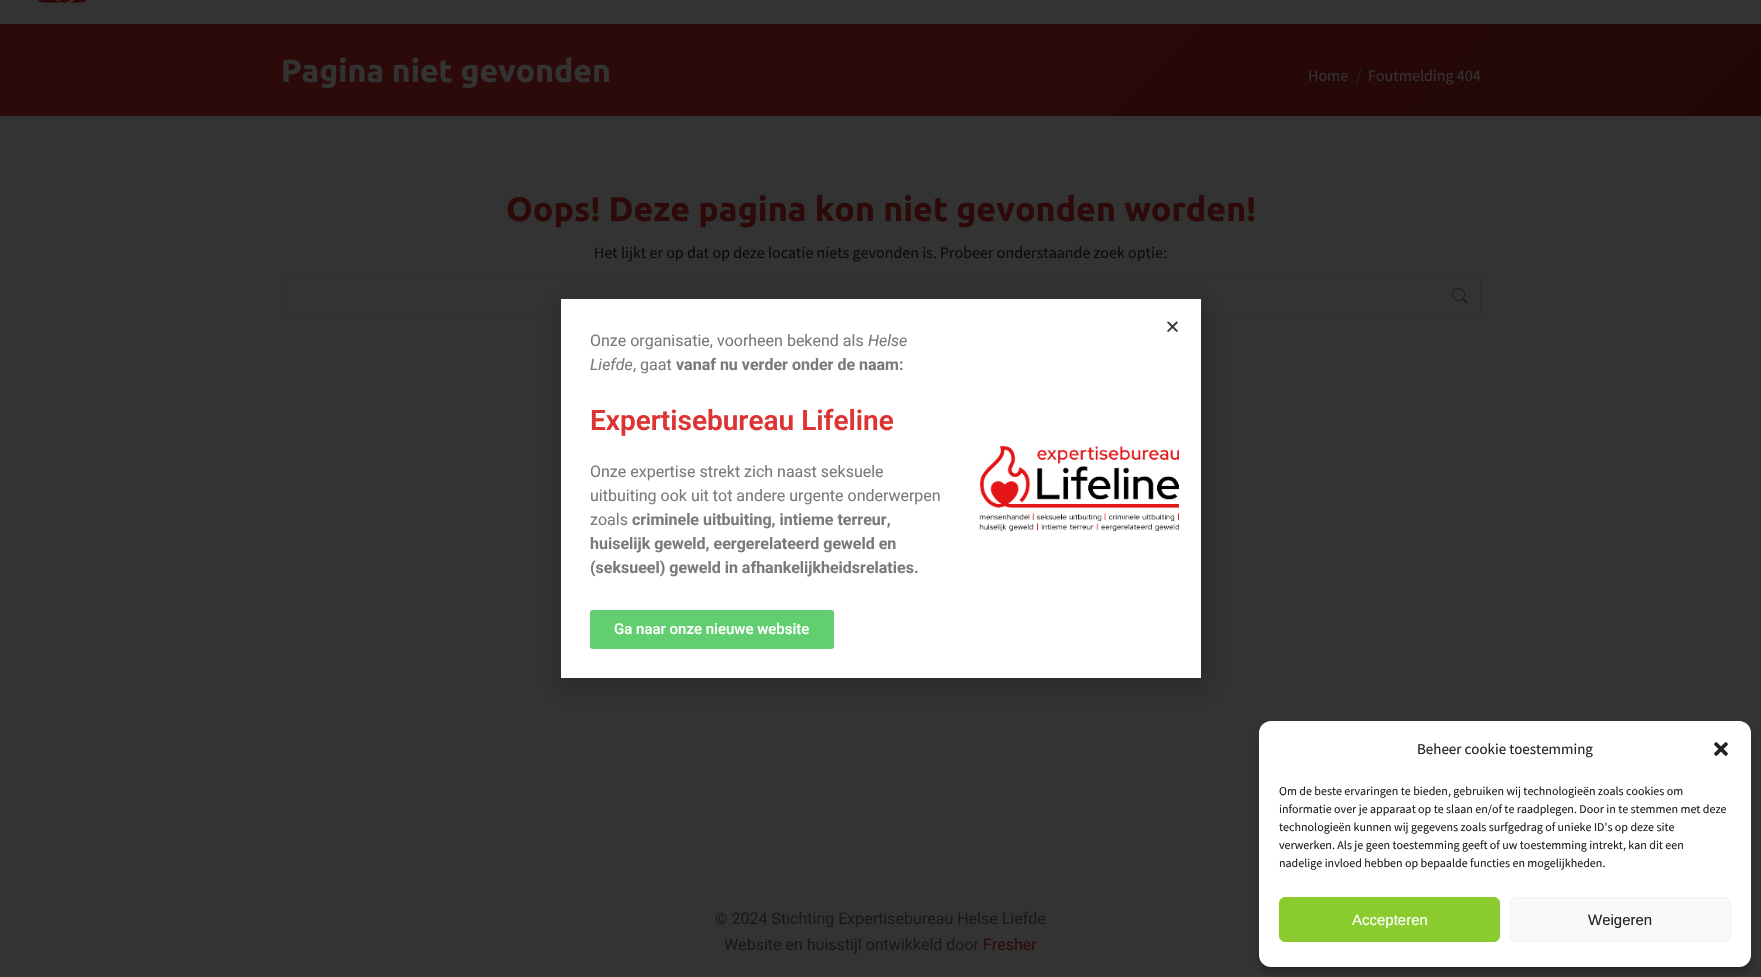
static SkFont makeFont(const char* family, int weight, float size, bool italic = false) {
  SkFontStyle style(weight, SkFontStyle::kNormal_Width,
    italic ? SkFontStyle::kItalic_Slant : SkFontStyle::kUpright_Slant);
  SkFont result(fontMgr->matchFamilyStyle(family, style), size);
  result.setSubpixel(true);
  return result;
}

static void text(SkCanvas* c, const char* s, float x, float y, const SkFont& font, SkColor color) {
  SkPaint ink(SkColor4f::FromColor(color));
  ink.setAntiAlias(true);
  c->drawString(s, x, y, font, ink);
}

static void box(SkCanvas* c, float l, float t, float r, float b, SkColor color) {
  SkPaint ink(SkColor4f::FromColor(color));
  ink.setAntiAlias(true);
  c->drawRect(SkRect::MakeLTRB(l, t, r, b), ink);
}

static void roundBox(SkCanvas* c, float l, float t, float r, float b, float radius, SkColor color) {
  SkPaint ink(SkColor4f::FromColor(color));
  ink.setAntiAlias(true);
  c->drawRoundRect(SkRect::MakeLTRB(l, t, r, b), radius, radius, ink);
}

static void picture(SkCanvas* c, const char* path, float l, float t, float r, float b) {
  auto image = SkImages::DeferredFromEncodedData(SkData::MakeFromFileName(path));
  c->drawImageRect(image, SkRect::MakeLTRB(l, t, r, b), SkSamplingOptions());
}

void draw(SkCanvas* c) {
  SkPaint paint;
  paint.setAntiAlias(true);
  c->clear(0xff333333);
  picture(c, "img_01.png", 31, 0, 87, 6);
  {
    const SkColor colors[] = {0xff2c0a0a, 0xff230707};
    const float stops[] = {0.3f, 1};
    const SkPoint ends[] = {{417, -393}, {1344, 533}};
    paint.setShader(SkGradientShader::MakeLinear(ends, colors, stops, 2, SkTileMode::kClamp));
    paint.setAlpha(255);
  }
  c->drawRect(SkRect::MakeLTRB(0, 24, 1761, 116), paint);
  SkFont face1 = makeFont("Ubuntu", 700, 32);
  text(c, "Pagina niet gevonden", 281, 82, face1, 0xff333333);
  SkFont face2 = makeFont("Source Sans Pro", 400, 16);
  text(c, "Home", 1308, 81, face2, 0xff333333);
  text(c, "/", 1356, 81, face2, 0xff2d1e1e);
  text(c, "Foutmelding 404", 1368, 81, face2, 0xff333333);
  SkFont face3 = makeFont("Ubuntu", 700, 34);
  text(c, "Oops! Deze pagina kon niet gevonden worden!", 506, 221, face3, 0xff2c0a0a);
  text(c, "Het lijkt er op dat op deze locatie niets gevonden is. Probeer onderstaande zoek optie:", 594, 258, face2, 0xff0b0b0b);
  paint.setStyle(SkPaint::kStroke_Style);
  paint.setStrokeWidth(1);
  paint.setShader(nullptr);
  paint.setColor(0xff2e2e2e);
  c->drawRoundRect(SkRect::MakeLTRB(281.5f, 276.5f, 1480.5f, 315.5f), 1.5f, 1.5f, paint);
  picture(c, "img_02.png", 1452, 288, 1468, 304);
  SkFont face4 = makeFont("Roboto", 400, 16);
  text(c, "© 2024 Stichting Expertisebureau Helse Liefde", 715, 924, face4, 0xff181818);
  text(c, "Website en huisstijl ontwikkeld door", 724, 950, face4, 0xff181818);
  text(c, "Fresher", 983, 950, face4, 0xff2c0a0a);
  paint.setStyle(SkPaint::kFill_Style);
  paint.setColor(0x33000000);
  paint.setMaskFilter(SkMaskFilter::MakeBlur(kNormal_SkBlurStyle, 11.5f));
  c->drawRect(SkRect::MakeLTRB(560, 304, 1206, 689), paint);
  paint.setMaskFilter(nullptr);
  box(c, 561, 299, 1201, 678, 0xffffffff);
  picture(c, "img_03.png", 1167, 321, 1178, 332);
  text(c, "Onze organisatie, voorheen bekend als", 590, 346, face4, 0xff7a7a7a);
  SkFont face5 = makeFont("Roboto", 400, 16, true);
  text(c, "Helse", 868, 346, face5, 0xff7a7a7a);
  text(c, "Liefde", 590, 370, face5, 0xff7a7a7a);
  text(c, ", gaat", 633, 370, face4, 0xff7a7a7a);
  SkFont face6 = makeFont("Roboto", 700, 16);
  text(c, "vanaf nu verder onder de naam:", 676, 370, face6, 0xff7a7a7a);
  SkFont face7 = makeFont("Roboto", 600, 28);
  text(c, "Expertisebureau Lifeline", 590, 430, face7, 0xffdd3333);
  text(c, "Onze expertise strekt zich naast seksuele", 590, 477, face4, 0xff7a7a7a);
  text(c, "uitbuiting ook uit tot andere urgente onderwerpen", 590, 501, face4, 0xff7a7a7a);
  text(c, "zoals", 590, 525, face4, 0xff7a7a7a);
  text(c, "criminele uitbuiting, intieme terreur,", 632, 525, face6, 0xff7a7a7a);
  text(c, "huiselijk geweld, eergerelateerd geweld en", 590, 549, face6, 0xff7a7a7a);
  text(c, "(seksueel) geweld in afhankelijkheidsrelaties.", 590, 573, face6, 0xff7a7a7a);
  roundBox(c, 590, 610, 834, 649, 3, 0xff61ce70);
  SkFont face8 = makeFont("Roboto", 500, 15);
  text(c, "Ga naar onze nieuwe website", 614, 634, face8, 0xffffffff);
  picture(c, "img_04.png", 979, 445, 1179, 532);
  paint.setColor(0x3b000000);
  paint.setMaskFilter(SkMaskFilter::MakeBlur(kNormal_SkBlurStyle, 3));
  c->drawRoundRect(SkRect::MakeLTRB(1259, 727, 1751, 973), 12, 12, paint);
  paint.setMaskFilter(nullptr);
  roundBox(c, 1259, 721, 1751, 967, 12, 0xffffffff);
  SkFont face9 = makeFont("Source Sans Pro", 400, 15);
  text(c, "Beheer cookie toestemming", 1417, 754, face9, 0xff222222);
  picture(c, "img_05.png", 1714, 742, 1728, 756);
  SkFont face10 = makeFont("Source Sans Pro", 400, 12);
  text(c, "Om de beste ervaringen te bieden, gebruiken wij technologieën zoals cookies om", 1279, 795, face10, 0xff222222);
  text(c, "informatie over je apparaat op te slaan en/of te raadplegen. Door in te stemmen met deze", 1279, 813, face10, 0xff222222);
  text(c, "technologieën kunnen wij gegevens zoals surfgedrag of unieke ID's op deze site", 1279, 831, face10, 0xff222222);
  text(c, "verwerken. Als je geen toestemming geeft of uw toestemming intrekt, kan dit een", 1279, 849, face10, 0xff222222);
  text(c, "nadelige invloed hebben op bepaalde functies en mogelijkheden.", 1279, 867, face10, 0xff222222);
  paint.setColor(0xff8acc2e);
  c->drawRoundRect(SkRect::MakeLTRB(1279.5f, 897.5f, 1499.5f, 941.5f), 5.5f, 5.5f, paint);
  paint.setStyle(SkPaint::kStroke_Style);
  c->drawRoundRect(SkRect::MakeLTRB(1279.5f, 897.5f, 1499.5f, 941.5f), 5.5f, 5.5f, paint);
  SkFont face11 = makeFont("Liberation Sans", 400, 15);
  text(c, "Accepteren", 1352, 925, face11, 0xffffffff);
  paint.setStyle(SkPaint::kFill_Style);
  paint.setColor(0xfff9f9f9);
  c->drawRoundRect(SkRect::MakeLTRB(1510.5f, 897.5f, 1730.5f, 941.5f), 5.5f, 5.5f, paint);
  paint.setStyle(SkPaint::kStroke_Style);
  paint.setColor(0xfff2f2f2);
  c->drawRoundRect(SkRect::MakeLTRB(1510.5f, 897.5f, 1730.5f, 941.5f), 5.5f, 5.5f, paint);
  text(c, "Weigeren", 1588, 925, face11, 0xff222222);
}
